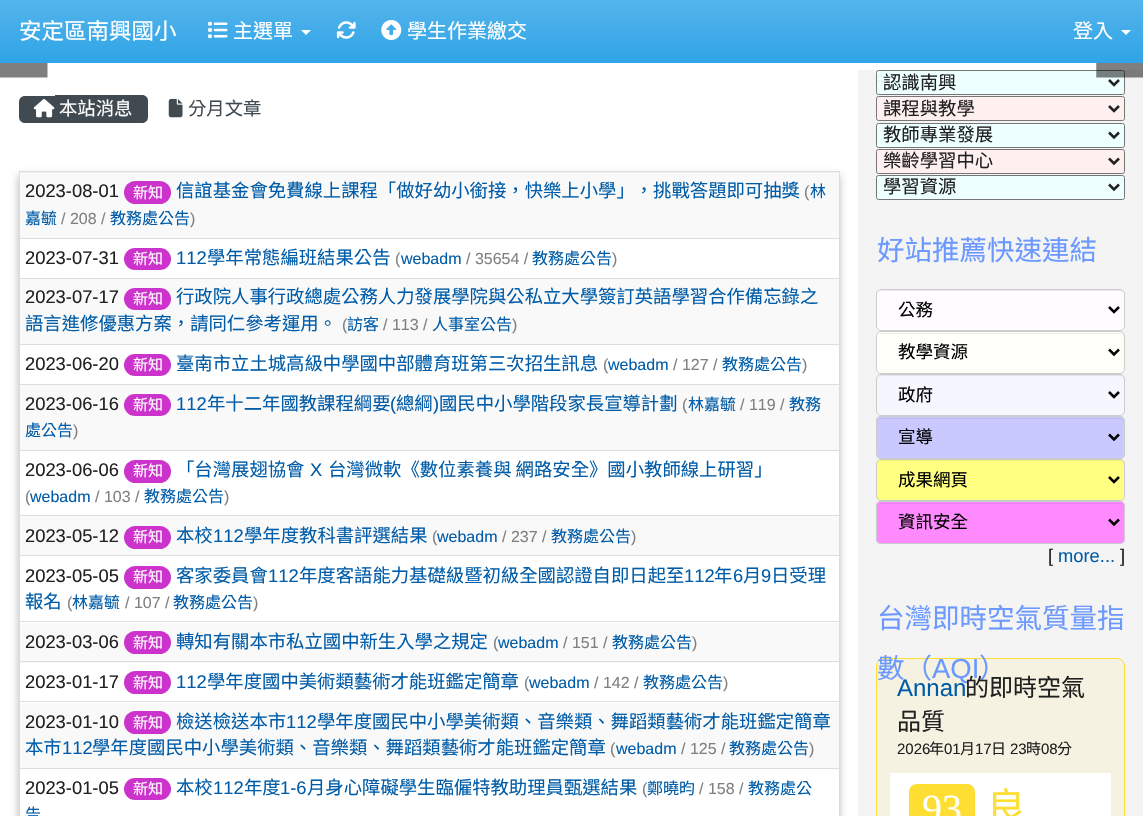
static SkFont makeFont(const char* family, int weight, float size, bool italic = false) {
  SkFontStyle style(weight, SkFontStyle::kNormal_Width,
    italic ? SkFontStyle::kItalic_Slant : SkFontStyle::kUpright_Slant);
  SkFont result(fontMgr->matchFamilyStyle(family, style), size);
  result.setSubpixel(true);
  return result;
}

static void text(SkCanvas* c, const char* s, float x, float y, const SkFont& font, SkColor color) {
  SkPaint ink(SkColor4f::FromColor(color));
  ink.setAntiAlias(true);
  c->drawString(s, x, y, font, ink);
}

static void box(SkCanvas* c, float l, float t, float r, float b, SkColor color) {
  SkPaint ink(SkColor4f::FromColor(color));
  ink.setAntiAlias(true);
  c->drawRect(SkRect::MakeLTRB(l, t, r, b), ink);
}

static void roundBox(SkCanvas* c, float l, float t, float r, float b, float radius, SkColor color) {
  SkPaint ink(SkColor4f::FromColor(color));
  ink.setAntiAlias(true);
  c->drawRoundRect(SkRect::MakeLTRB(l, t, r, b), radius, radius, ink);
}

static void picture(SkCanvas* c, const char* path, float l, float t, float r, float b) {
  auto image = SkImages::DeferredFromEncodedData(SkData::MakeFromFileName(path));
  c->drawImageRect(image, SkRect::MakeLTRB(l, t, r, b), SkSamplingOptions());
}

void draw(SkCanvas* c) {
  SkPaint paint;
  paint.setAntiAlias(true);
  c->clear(0xffffffff);
  {
    const SkColor colors[] = {0xff54b4eb, 0xff2fa4e7};
    const float stops[] = {0, 1};
    const SkPoint ends[] = {{572, 0}, {572, 63}};
    paint.setShader(SkGradientShader::MakeLinear(ends, colors, stops, 2, SkTileMode::kClamp));
    paint.setAlpha(255);
  }
  c->drawRect(SkRect::MakeLTRB(0, 0, 1143, 63), paint);
  SkFont face1 = makeFont("Noto Sans CJK TC", 400, 22.5f);
  text(c, "安定區南興國小", 19, 39, face1, 0xffffffff);
  picture(c, "img_01.png", 208, 21, 228, 39);
  SkFont face2 = makeFont("Noto Sans CJK TC", 400, 20);
  text(c, "主選單", 233, 38, face2, 0xffffffff);
  paint.setShader(nullptr);
  paint.setColor(0xffffffff);
  c->drawPath(SkPathBuilder().moveTo(301, 30).lineTo(311, 30).lineTo(306, 35).close().detach(), paint);
  picture(c, "img_02.png", 336, 21, 356, 39);
  picture(c, "img_03.png", 381, 20, 402, 40);
  text(c, "學生作業繳交", 407, 38, face2, 0xffffffff);
  text(c, "登入", 1073, 38, face2, 0xffffffff);
  c->drawPath(SkPathBuilder().moveTo(1121, 30).lineTo(1131, 30).lineTo(1126, 35).close().detach(), paint);
  picture(c, "img_04.png", 0, 63, 48, 78);
  box(c, 858, 70, 1143, 816, 0xfff4f4f4);
  paint.setColor(0xffedffff);
  c->drawRoundRect(SkRect::MakeLTRB(876.5f, 70.5f, 1124.5f, 94.5f), 2, 2, paint);
  paint.setStyle(SkPaint::kStroke_Style);
  paint.setStrokeWidth(1);
  paint.setColor(0xff767676);
  c->drawRoundRect(SkRect::MakeLTRB(876.5f, 70.5f, 1124.5f, 94.5f), 2, 2, paint);
  picture(c, "img_05.png", 1096, 63, 1143, 78);
  paint.setStyle(SkPaint::kFill_Style);
  paint.setColor(0xff404a50);
  c->drawPath(SkPathBuilder().moveTo(25, 96).lineTo(55, 96).lineTo(55, 123).lineTo(25, 123).cubicTo(21.5f, 123, 19, 120.5f, 19, 117).lineTo(19, 102).cubicTo(19, 98.5f, 21.5f, 96, 25, 96).close().detach(), paint);
  c->drawPath(SkPathBuilder().moveTo(55, 95).lineTo(142, 95).cubicTo(145.5f, 95, 148, 97.5f, 148, 101).lineTo(148, 117).cubicTo(148, 120.5f, 145.5f, 123, 142, 123).lineTo(55, 123).close().detach(), paint);
  picture(c, "img_06.png", 33, 99, 55, 118);
  SkFont face3 = makeFont("Noto Sans CJK TC", 400, 18.35f);
  text(c, "本站消息", 59, 115, face3, 0xffffffff);
  picture(c, "img_07.png", 168, 98, 183, 118);
  text(c, "分月文章", 188, 115, face3, 0xff404a50);
  paint.setColor(0x4d000000);
  paint.setMaskFilter(SkMaskFilter::MakeBlur(kNormal_SkBlurStyle, 4));
  c->drawRect(SkRect::MakeLTRB(19, 176, 839, 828), paint);
  paint.setMaskFilter(nullptr);
  box(c, 20, 239, 839, 816, 0xffffffff);
  box(c, 20, 173, 839, 238, 0xfff9f9f9);
  box(c, 19, 171, 840, 172, 0xffdddddd);
  box(c, 839, 171, 840, 181, 0xffdddddd);
  box(c, 19, 238, 840, 239, 0xffdddddd);
  box(c, 19, 278, 840, 279, 0xffdddddd);
  box(c, 19, 344, 840, 345, 0xffdddddd);
  box(c, 19, 384, 840, 385, 0xffdddddd);
  box(c, 19, 450, 840, 451, 0xffdddddd);
  box(c, 19, 515, 840, 516, 0xffdddddd);
  box(c, 19, 555, 840, 556, 0xffdddddd);
  box(c, 19, 621, 840, 622, 0xffdddddd);
  box(c, 20, 623, 839, 663, 0xfff9f9f9);
  box(c, 19, 661, 840, 662, 0xffdddddd);
  box(c, 19, 701, 840, 702, 0xffdddddd);
  box(c, 19, 768, 840, 769, 0xffdddddd);
  box(c, 19, 768, 20, 816, 0xffdddddd);
  box(c, 19, 701, 20, 769, 0xffdddddd);
  box(c, 19, 661, 20, 703, 0xffdddddd);
  box(c, 19, 621, 20, 663, 0xffdddddd);
  box(c, 19, 555, 20, 623, 0xffdddddd);
  box(c, 19, 515, 20, 556, 0xffdddddd);
  box(c, 19, 450, 20, 516, 0xffdddddd);
  box(c, 19, 384, 20, 451, 0xffdddddd);
  box(c, 19, 344, 20, 385, 0xffdddddd);
  box(c, 19, 278, 20, 345, 0xffdddddd);
  box(c, 19, 238, 20, 279, 0xffdddddd);
  box(c, 19, 171, 20, 239, 0xffdddddd);
  SkFont face4 = makeFont("Liberation Sans", 400, 18.35f);
  text(c, "2023-08-01", 25, 197, face4, 0xff202020);
  roundBox(c, 124, 181, 171, 204, 11.5f, 0xffcc33cc);
  SkFont face5 = makeFont("Noto Sans CJK TC", 400, 15);
  text(c, "新知", 133, 198, face5, 0xffffffff);
  text(c, "信誼基金會免費線上課程「做好幼小銜接，快樂上小學」，挑戰答題即可抽獎", 176, 197, face3, 0xff005ca8);
  SkFont face6 = makeFont("Liberation Sans", 400, 16);
  text(c, "(", 804, 197, face6, 0xff808080);
  SkFont face7 = makeFont("Noto Sans CJK TC", 400, 16);
  text(c, "林", 810, 197, face7, 0xff005ca8);
  text(c, "嘉毓", 25, 224, face7, 0xff005ca8);
  text(c, "/ 208 /", 61, 224, face6, 0xff808080);
  text(c, "教務處公告", 110, 224, face7, 0xff005ca8);
  text(c, ")", 190, 224, face6, 0xff808080);
  text(c, "2023-07-31", 25, 264, face4, 0xff202020);
  roundBox(c, 124, 248, 171, 270, 11, 0xffcc33cc);
  text(c, "新知", 133, 264, face5, 0xffffffff);
  text(c, "112", 176, 264, face4, 0xff005ca8);
  text(c, "學年常態編班結果公告", 207, 264, face3, 0xff005ca8);
  text(c, "(", 395, 264, face6, 0xff808080);
  text(c, "webadm", 401, 264, face6, 0xff005ca8);
  text(c, "/ 35654 /", 466, 264, face6, 0xff808080);
  text(c, "教務處公告", 532, 264, face7, 0xff005ca8);
  text(c, ")", 612, 264, face6, 0xff808080);
  box(c, 20, 279, 839, 344, 0xfff9f9f9);
  text(c, "2023-07-17", 25, 303, face4, 0xff202020);
  roundBox(c, 124, 288, 171, 310, 11, 0xffcc33cc);
  text(c, "新知", 133, 304, face5, 0xffffffff);
  text(c, "行政院人事行政總處公務人力發展學院與公私立大學簽訂英語學習合作備忘錄之", 176, 303, face3, 0xff005ca8);
  text(c, "語言進修優惠方案，請同仁參考運用。", 25, 330, face3, 0xff005ca8);
  text(c, "(", 342, 330, face6, 0xff808080);
  text(c, "訪客", 347, 330, face7, 0xff005ca8);
  text(c, "/ 113 /", 383, 330, face6, 0xff808080);
  text(c, "人事室公告", 432, 330, face7, 0xff005ca8);
  text(c, ")", 512, 330, face6, 0xff808080);
  text(c, "2023-06-20", 25, 370, face4, 0xff202020);
  roundBox(c, 124, 354, 171, 376, 11, 0xffcc33cc);
  text(c, "新知", 133, 370, face5, 0xffffffff);
  text(c, "臺南市立土城高級中學國中部體育班第三次招生訊息", 176, 370, face3, 0xff005ca8);
  text(c, "(", 603, 370, face6, 0xff808080);
  text(c, "webadm", 608, 370, face6, 0xff005ca8);
  text(c, "/ 127 /", 673, 370, face6, 0xff808080);
  text(c, "教務處公告", 722, 370, face7, 0xff005ca8);
  text(c, ")", 802, 370, face6, 0xff808080);
  box(c, 20, 385, 839, 450, 0xfff9f9f9);
  text(c, "2023-06-16", 25, 410, face4, 0xff202020);
  roundBox(c, 124, 394, 171, 416, 11, 0xffcc33cc);
  text(c, "新知", 133, 410, face5, 0xffffffff);
  text(c, "112", 176, 410, face4, 0xff005ca8);
  text(c, "年十二年國教課程綱要", 207, 410, face3, 0xff005ca8);
  text(c, "(", 390, 410, face4, 0xff005ca8);
  text(c, "總綱", 396, 410, face3, 0xff005ca8);
  text(c, ")", 433, 410, face4, 0xff005ca8);
  text(c, "國民中小學階段家長宣導計劃", 439, 410, face3, 0xff005ca8);
  text(c, "(", 682, 410, face6, 0xff808080);
  text(c, "林嘉毓", 688, 410, face7, 0xff005ca8);
  text(c, "/ 119 /", 740, 410, face6, 0xff808080);
  text(c, "教務", 789, 410, face7, 0xff005ca8);
  text(c, "處公告", 25, 436, face7, 0xff005ca8);
  text(c, ")", 73, 436, face6, 0xff808080);
  text(c, "2023-06-06", 25, 476, face4, 0xff202020);
  roundBox(c, 124, 460, 171, 483, 11.5f, 0xffcc33cc);
  text(c, "新知", 133, 476, face5, 0xffffffff);
  text(c, "「台灣展翅協會", 176, 476, face3, 0xff005ca8);
  text(c, "X", 310, 476, face4, 0xff005ca8);
  text(c, "台灣微軟《數位素養與 網路安全》國小教師線上研習」", 328, 476, face3, 0xff005ca8);
  text(c, "(", 25, 502, face6, 0xff808080);
  text(c, "webadm", 30, 502, face6, 0xff005ca8);
  text(c, "/ 103 /", 95, 502, face6, 0xff808080);
  text(c, "教務處公告", 144, 502, face7, 0xff005ca8);
  text(c, ")", 224, 502, face6, 0xff808080);
  box(c, 20, 516, 839, 555, 0xfff9f9f9);
  text(c, "2023-05-12", 25, 542, face4, 0xff202020);
  roundBox(c, 124, 526, 171, 549, 11.5f, 0xffcc33cc);
  text(c, "新知", 133, 542, face5, 0xffffffff);
  text(c, "本校", 176, 542, face3, 0xff005ca8);
  text(c, "112", 213, 542, face4, 0xff005ca8);
  text(c, "學年度教科書評選結果", 244, 542, face3, 0xff005ca8);
  text(c, "(", 432, 542, face6, 0xff808080);
  text(c, "webadm", 437, 542, face6, 0xff005ca8);
  text(c, "/ 237 /", 502, 542, face6, 0xff808080);
  text(c, "教務處公告", 551, 542, face7, 0xff005ca8);
  text(c, ")", 631, 542, face6, 0xff808080);
  text(c, "2023-05-05", 25, 582, face4, 0xff202020);
  roundBox(c, 124, 566, 171, 589, 11.5f, 0xffcc33cc);
  text(c, "新知", 133, 582, face5, 0xffffffff);
  text(c, "客家委員會", 176, 582, face3, 0xff005ca8);
  text(c, "112", 268, 582, face4, 0xff005ca8);
  text(c, "年度客語能力基礎級暨初級全國認證自即日起至", 299, 582, face3, 0xff005ca8);
  text(c, "112", 684, 582, face4, 0xff005ca8);
  text(c, "年", 714, 582, face3, 0xff005ca8);
  text(c, "6", 733, 582, face4, 0xff005ca8);
  text(c, "月", 743, 582, face3, 0xff005ca8);
  text(c, "9", 761, 582, face4, 0xff005ca8);
  text(c, "日受理", 771, 582, face3, 0xff005ca8);
  text(c, "報名", 25, 608, face3, 0xff005ca8);
  text(c, "(", 67, 608, face6, 0xff808080);
  text(c, "林嘉毓", 72, 608, face7, 0xff005ca8);
  text(c, "/ 107 /", 125, 608, face6, 0xff808080);
  text(c, "教務處公告", 173, 608, face7, 0xff005ca8);
  text(c, ")", 253, 608, face6, 0xff808080);
  text(c, "2023-03-06", 25, 648, face4, 0xff202020);
  roundBox(c, 124, 631, 171, 654, 11.5f, 0xffcc33cc);
  text(c, "新知", 133, 648, face5, 0xffffffff);
  text(c, "轉知有關本市私立國中新生入學之規定", 176, 648, face3, 0xff005ca8);
  text(c, "(", 493, 648, face6, 0xff808080);
  text(c, "webadm", 498, 648, face6, 0xff005ca8);
  text(c, "/ 151 /", 563, 648, face6, 0xff808080);
  text(c, "教務處公告", 612, 648, face7, 0xff005ca8);
  text(c, ")", 692, 648, face6, 0xff808080);
  text(c, "2023-01-17", 25, 688, face4, 0xff202020);
  roundBox(c, 124, 671, 171, 694, 11.5f, 0xffcc33cc);
  text(c, "新知", 133, 688, face5, 0xffffffff);
  text(c, "112", 176, 688, face4, 0xff005ca8);
  text(c, "學年度國中美術類藝術才能班鑑定簡章", 207, 688, face3, 0xff005ca8);
  text(c, "(", 524, 688, face6, 0xff808080);
  text(c, "webadm", 529, 688, face6, 0xff005ca8);
  text(c, "/ 142 /", 594, 688, face6, 0xff808080);
  text(c, "教務處公告", 643, 688, face7, 0xff005ca8);
  text(c, ")", 723, 688, face6, 0xff808080);
  box(c, 20, 703, 839, 768, 0xfff9f9f9);
  text(c, "2023-01-10", 25, 728, face4, 0xff202020);
  roundBox(c, 124, 711, 171, 734, 11.5f, 0xffcc33cc);
  text(c, "新知", 133, 728, face5, 0xffffffff);
  text(c, "檢送檢送本市", 176, 728, face3, 0xff005ca8);
  text(c, "112", 286, 728, face4, 0xff005ca8);
  text(c, "學年度國民中小學美術類、音樂類、舞蹈類藝術才能班鑑定簡章", 317, 728, face3, 0xff005ca8);
  text(c, "本市", 25, 754, face3, 0xff005ca8);
  text(c, "112", 62, 754, face4, 0xff005ca8);
  text(c, "學年度國民中小學美術類、音樂類、舞蹈類藝術才能班鑑定簡章", 92, 754, face3, 0xff005ca8);
  text(c, "(", 610, 754, face6, 0xff808080);
  text(c, "webadm", 616, 754, face6, 0xff005ca8);
  text(c, "/ 125 /", 681, 754, face6, 0xff808080);
  text(c, "教務處公告", 729, 754, face7, 0xff005ca8);
  text(c, ")", 809, 754, face6, 0xff808080);
  text(c, "2023-01-05", 25, 794, face4, 0xff202020);
  roundBox(c, 124, 778, 171, 800, 11, 0xffcc33cc);
  text(c, "新知", 133, 794, face5, 0xffffffff);
  text(c, "本校", 176, 794, face3, 0xff005ca8);
  text(c, "112", 213, 794, face4, 0xff005ca8);
  text(c, "年度", 244, 794, face3, 0xff005ca8);
  text(c, "1-6", 280, 794, face4, 0xff005ca8);
  text(c, "月身心障礙學生臨僱特教助理員甄選結果", 307, 794, face3, 0xff005ca8);
  text(c, "(", 642, 794, face6, 0xff808080);
  text(c, "鄭曉昀", 647, 794, face7, 0xff005ca8);
  text(c, "/ 158 /", 699, 794, face6, 0xff808080);
  text(c, "教務處公", 748, 794, face7, 0xff005ca8);
  text(c, "告", 25, 820, face7, 0xff005ca8);
  paint.setStyle(SkPaint::kStroke_Style);
  paint.setStrokeWidth(2.5f);
  paint.setColor(0xff202020);
  c->drawPath(SkPathBuilder().moveTo(1109, 80).lineTo(1114, 85).lineTo(1119, 80).detach(), paint);
  text(c, "認識南興", 883, 89, face3, 0xff202020);
  paint.setStyle(SkPaint::kFill_Style);
  paint.setColor(0xfffff0f0);
  c->drawRoundRect(SkRect::MakeLTRB(876.5f, 96.5f, 1124.5f, 120.5f), 2, 2, paint);
  paint.setStyle(SkPaint::kStroke_Style);
  paint.setStrokeWidth(1);
  paint.setColor(0xff767676);
  c->drawRoundRect(SkRect::MakeLTRB(876.5f, 96.5f, 1124.5f, 120.5f), 2, 2, paint);
  paint.setStrokeWidth(2.5f);
  paint.setColor(0xff202020);
  c->drawPath(SkPathBuilder().moveTo(1109, 106).lineTo(1114, 111).lineTo(1119, 106).detach(), paint);
  text(c, "課程與教學", 883, 115, face3, 0xff202020);
  paint.setStyle(SkPaint::kFill_Style);
  paint.setColor(0xffedffff);
  c->drawRoundRect(SkRect::MakeLTRB(876.5f, 123.5f, 1124.5f, 147.5f), 2, 2, paint);
  paint.setStyle(SkPaint::kStroke_Style);
  paint.setStrokeWidth(1);
  paint.setColor(0xff767676);
  c->drawRoundRect(SkRect::MakeLTRB(876.5f, 123.5f, 1124.5f, 147.5f), 2, 2, paint);
  paint.setStrokeWidth(2.5f);
  paint.setColor(0xff202020);
  c->drawPath(SkPathBuilder().moveTo(1109, 132.5f).lineTo(1114, 137.5f).lineTo(1119, 132.5f).detach(), paint);
  text(c, "教師專業發展", 883, 141, face3, 0xff202020);
  paint.setStyle(SkPaint::kFill_Style);
  paint.setColor(0xfffff0f0);
  c->drawRoundRect(SkRect::MakeLTRB(876.5f, 149.5f, 1124.5f, 173.5f), 2, 2, paint);
  paint.setStyle(SkPaint::kStroke_Style);
  paint.setStrokeWidth(1);
  paint.setColor(0xff767676);
  c->drawRoundRect(SkRect::MakeLTRB(876.5f, 149.5f, 1124.5f, 173.5f), 2, 2, paint);
  paint.setStrokeWidth(2.5f);
  paint.setColor(0xff202020);
  c->drawPath(SkPathBuilder().moveTo(1109, 158.5f).lineTo(1114, 163.5f).lineTo(1119, 158.5f).detach(), paint);
  text(c, "樂齡學習中心", 883, 167, face3, 0xff202020);
  paint.setStyle(SkPaint::kFill_Style);
  paint.setColor(0xffedffff);
  c->drawRoundRect(SkRect::MakeLTRB(876.5f, 175.5f, 1124.5f, 199.5f), 2, 2, paint);
  paint.setStyle(SkPaint::kStroke_Style);
  paint.setStrokeWidth(1);
  paint.setColor(0xff767676);
  c->drawRoundRect(SkRect::MakeLTRB(876.5f, 175.5f, 1124.5f, 199.5f), 2, 2, paint);
  paint.setStrokeWidth(2.5f);
  paint.setColor(0xff202020);
  c->drawPath(SkPathBuilder().moveTo(1109, 184.5f).lineTo(1114, 189.5f).lineTo(1119, 184.5f).detach(), paint);
  text(c, "學習資源", 883, 193, face3, 0xff202020);
  SkFont face8 = makeFont("Noto Sans CJK TC", 400, 27.5f);
  text(c, "好站推薦快速連結", 877, 260, face8, 0xff6c99ff);
  roundBox(c, 876, 289, 1125, 331, 5, 0xfffffcff);
  paint.setStyle(SkPaint::kFill_Style);
  paint.setColor(0xffece9ec);
  c->drawPath(SkPathBuilder().moveTo(881, 291).lineTo(1120, 291).cubicTo(1122, 291, 1124, 293, 1124, 295).lineTo(1124, 294).cubicTo(1124, 292, 1122, 290, 1120, 290).lineTo(882, 290).cubicTo(880, 290, 878, 292, 878, 294).lineTo(878, 295).cubicTo(878, 293, 879, 291, 881, 291).close().detach(), paint);
  paint.setStyle(SkPaint::kStroke_Style);
  paint.setStrokeWidth(1);
  paint.setColor(0xffcccccc);
  c->drawRoundRect(SkRect::MakeLTRB(876.5f, 289.5f, 1124.5f, 330.5f), 4.5f, 4.5f, paint);
  paint.setStrokeWidth(2.5f);
  paint.setColor(0xff000000);
  c->drawPath(SkPathBuilder().moveTo(1109, 307).lineTo(1114, 312).lineTo(1119, 307).detach(), paint);
  SkFont face9 = makeFont("Noto Sans CJK TC", 400, 17.5f);
  text(c, "公務", 898, 316, face9, 0xff000000);
  roundBox(c, 876, 331, 1125, 374, 5, 0xfffffff9);
  paint.setStyle(SkPaint::kFill_Style);
  paint.setColor(0xffecece6);
  c->drawPath(SkPathBuilder().moveTo(881, 334).lineTo(1120, 334).cubicTo(1122, 334, 1124, 335, 1124, 338).lineTo(1124, 337).cubicTo(1124, 335, 1122, 333, 1120, 333).lineTo(882, 333).cubicTo(880, 333, 878, 335, 878, 337).lineTo(878, 338).cubicTo(878, 335, 879, 334, 881, 334).close().detach(), paint);
  paint.setStyle(SkPaint::kStroke_Style);
  paint.setStrokeWidth(1);
  paint.setColor(0xffcccccc);
  c->drawRoundRect(SkRect::MakeLTRB(876.5f, 331.5f, 1124.5f, 373.5f), 4.5f, 4.5f, paint);
  paint.setStrokeWidth(2.5f);
  paint.setColor(0xff000000);
  c->drawPath(SkPathBuilder().moveTo(1109, 349.5f).lineTo(1114, 354.5f).lineTo(1119, 349.5f).detach(), paint);
  text(c, "教學資源", 898, 358, face9, 0xff000000);
  roundBox(c, 876, 374, 1125, 416, 5, 0xfff6f6ff);
  paint.setStyle(SkPaint::kFill_Style);
  paint.setColor(0xffe4e4ec);
  c->drawPath(SkPathBuilder().moveTo(881, 376).lineTo(1120, 376).cubicTo(1122, 376, 1124, 378, 1124, 380).lineTo(1124, 379).cubicTo(1124, 377, 1122, 375, 1120, 375).lineTo(882, 375).cubicTo(880, 375, 878, 377, 878, 379).lineTo(878, 380).cubicTo(878, 378, 879, 376, 881, 376).close().detach(), paint);
  paint.setStyle(SkPaint::kStroke_Style);
  paint.setStrokeWidth(1);
  paint.setColor(0xffcccccc);
  c->drawRoundRect(SkRect::MakeLTRB(876.5f, 374.5f, 1124.5f, 415.5f), 4.5f, 4.5f, paint);
  paint.setStrokeWidth(2.5f);
  paint.setColor(0xff000000);
  c->drawPath(SkPathBuilder().moveTo(1109, 392).lineTo(1114, 397).lineTo(1119, 392).detach(), paint);
  text(c, "政府", 898, 401, face9, 0xff000000);
  roundBox(c, 876, 416, 1125, 459, 5, 0xffc9c9ff);
  paint.setStyle(SkPaint::kFill_Style);
  paint.setColor(0xffbabaec);
  c->drawPath(SkPathBuilder().moveTo(881, 419).lineTo(1120, 419).cubicTo(1122, 419, 1124, 420, 1124, 422).cubicTo(1124, 420, 1122, 418, 1120, 418).lineTo(882, 418).cubicTo(881, 418, 879, 419, 879, 420).close().detach(), paint);
  paint.setStyle(SkPaint::kStroke_Style);
  paint.setStrokeWidth(1);
  paint.setColor(0xffcccccc);
  c->drawRoundRect(SkRect::MakeLTRB(876.5f, 416.5f, 1124.5f, 458.5f), 4.5f, 4.5f, paint);
  paint.setStrokeWidth(2.5f);
  paint.setColor(0xff000000);
  c->drawPath(SkPathBuilder().moveTo(1109, 434.5f).lineTo(1114, 439.5f).lineTo(1119, 434.5f).detach(), paint);
  text(c, "宣導", 898, 443, face9, 0xff000000);
  roundBox(c, 876, 459, 1125, 501, 5, 0xffffff81);
  paint.setStyle(SkPaint::kFill_Style);
  paint.setColor(0xffecec77);
  c->drawPath(SkPathBuilder().moveTo(881, 461).lineTo(1120, 461).cubicTo(1122, 461, 1124, 463, 1124, 465).lineTo(1124, 464).cubicTo(1124, 462, 1122, 460, 1120, 460).lineTo(882, 460).cubicTo(880, 460, 878, 462, 878, 464).lineTo(878, 465).cubicTo(878, 463, 879, 461, 881, 461).close().detach(), paint);
  paint.setStyle(SkPaint::kStroke_Style);
  paint.setStrokeWidth(1);
  paint.setColor(0xffcccccc);
  c->drawRoundRect(SkRect::MakeLTRB(876.5f, 459.5f, 1124.5f, 500.5f), 4.5f, 4.5f, paint);
  paint.setStrokeWidth(2.5f);
  paint.setColor(0xff000000);
  c->drawPath(SkPathBuilder().moveTo(1109, 477).lineTo(1114, 482).lineTo(1119, 477).detach(), paint);
  text(c, "成果網頁", 898, 486, face9, 0xff000000);
  roundBox(c, 876, 501, 1125, 544, 5, 0xffff8aff);
  paint.setStyle(SkPaint::kFill_Style);
  paint.setColor(0xffec80ec);
  c->drawPath(SkPathBuilder().moveTo(881, 504).lineTo(1120, 504).cubicTo(1122, 504, 1124, 505, 1124, 508).lineTo(1124, 507).cubicTo(1124, 505, 1122, 503, 1120, 503).lineTo(882, 503).cubicTo(880, 503, 878, 505, 878, 507).lineTo(878, 508).cubicTo(878, 505, 879, 504, 881, 504).close().detach(), paint);
  paint.setStyle(SkPaint::kStroke_Style);
  paint.setStrokeWidth(1);
  paint.setColor(0xffcccccc);
  c->drawRoundRect(SkRect::MakeLTRB(876.5f, 501.5f, 1124.5f, 543.5f), 4.5f, 4.5f, paint);
  paint.setStrokeWidth(2.5f);
  paint.setColor(0xff000000);
  c->drawPath(SkPathBuilder().moveTo(1109, 519.5f).lineTo(1114, 524.5f).lineTo(1119, 519.5f).detach(), paint);
  text(c, "資訊安全", 898, 528, face9, 0xff000000);
  text(c, "[", 1048, 562, face4, 0xff202020);
  text(c, "more...", 1058, 562, face4, 0xff005ca8);
  text(c, "]", 1120, 562, face4, 0xff202020);
  text(c, "台灣即時空氣質量指", 877, 628, face8, 0xff6c99ff);
  paint.setStyle(SkPaint::kFill_Style);
  paint.setColor(0xfff5f2e1);
  c->drawRoundRect(SkRect::MakeLTRB(876.5f, 658.5f, 1124.5f, 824.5f), 7.5f, 7.5f, paint);
  paint.setStyle(SkPaint::kStroke_Style);
  paint.setStrokeWidth(1);
  paint.setColor(0xffffde33);
  c->drawRoundRect(SkRect::MakeLTRB(876.5f, 658.5f, 1124.5f, 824.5f), 7.5f, 7.5f, paint);
  text(c, "數（", 877, 678, face8, 0xff6c99ff);
  SkFont face10 = makeFont("Liberation Sans", 400, 27.5f);
  text(c, "AQI", 932, 678, face10, 0xff6c99ff);
  text(c, "）", 979, 678, face8, 0xff6c99ff);
  SkFont face11 = makeFont("Liberation Sans", 400, 24);
  text(c, "Annan", 897, 696, face11, 0xff005ca8);
  SkFont face12 = makeFont("Noto Sans CJK TC", 400, 24);
  text(c, "的即時空氣", 965, 696, face12, 0xff202020);
  text(c, "品質", 897, 730, face12, 0xff202020);
  SkFont face13 = makeFont("Liberation Sans", 400, 15);
  text(c, "2026", 897, 754, face13, 0xff202020);
  text(c, "年", 929, 754, face5, 0xff202020);
  text(c, "01", 944, 754, face13, 0xff202020);
  text(c, "月", 960, 754, face5, 0xff202020);
  text(c, "17", 975, 754, face13, 0xff202020);
  text(c, "日", 991, 754, face5, 0xff202020);
  text(c, "23", 1010, 754, face13, 0xff202020);
  text(c, "時", 1026, 754, face5, 0xff202020);
  text(c, "08", 1041, 754, face13, 0xff202020);
  text(c, "分", 1057, 754, face5, 0xff202020);
  box(c, 890, 773, 1111, 816, 0xffffffff);
  roundBox(c, 909, 784, 975, 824, 8, 0xffffde33);
  SkFont face14 = makeFont("Liberation Serif", 400, 40);
  text(c, "93", 922, 822, face14, 0xffffffff);
  SkFont face15 = makeFont("Noto Sans CJK TC", 400, 40);
  text(c, "良", 986, 822, face15, 0xffffde33);
  SkFont face16 = makeFont("Liberation Sans", 400, 12);
  text(c, ":::", 877, 82, face16, 0xffdcecec);
}
